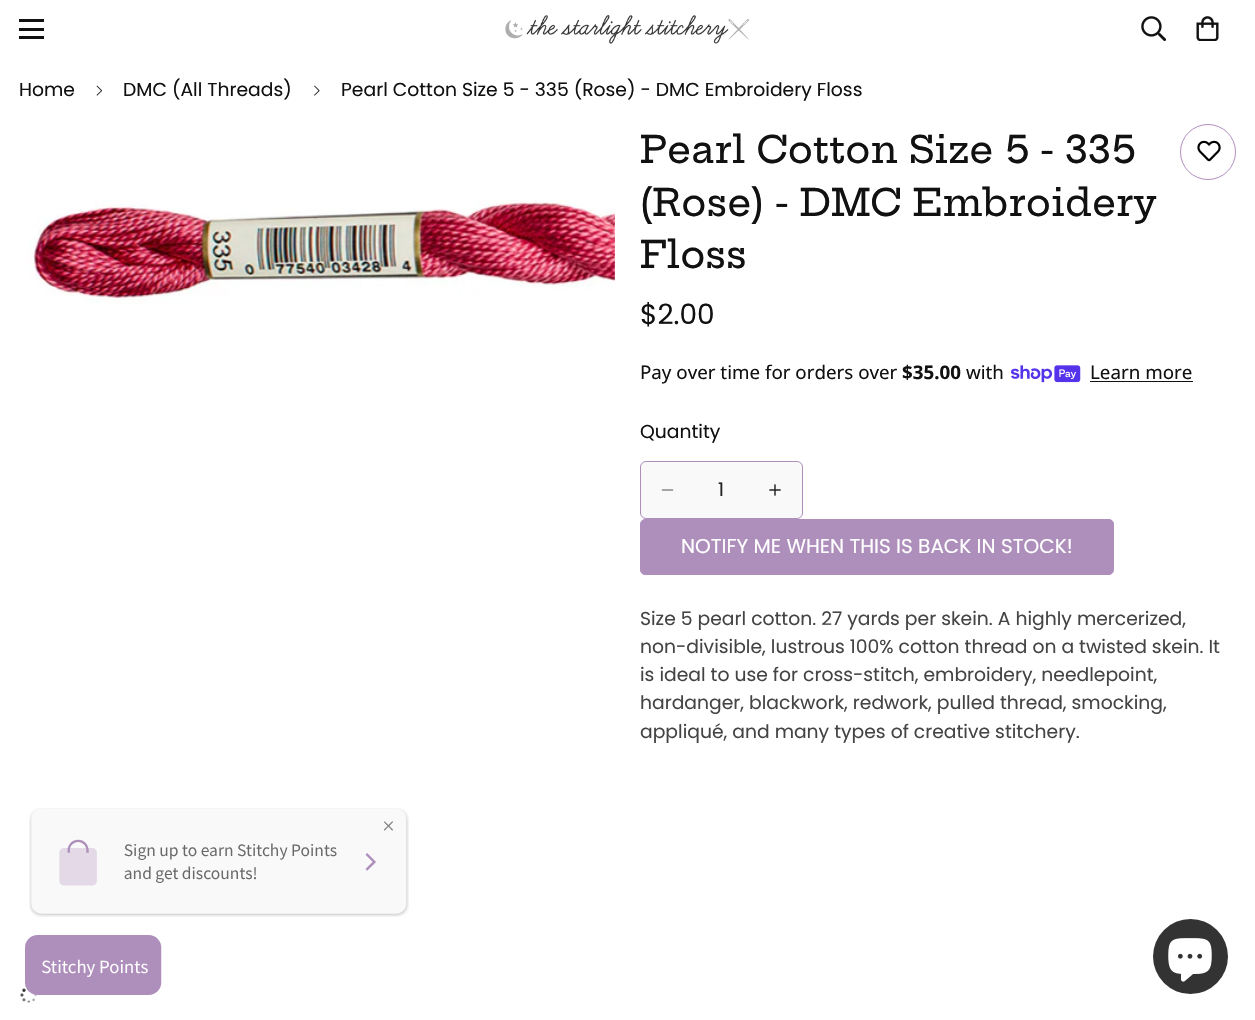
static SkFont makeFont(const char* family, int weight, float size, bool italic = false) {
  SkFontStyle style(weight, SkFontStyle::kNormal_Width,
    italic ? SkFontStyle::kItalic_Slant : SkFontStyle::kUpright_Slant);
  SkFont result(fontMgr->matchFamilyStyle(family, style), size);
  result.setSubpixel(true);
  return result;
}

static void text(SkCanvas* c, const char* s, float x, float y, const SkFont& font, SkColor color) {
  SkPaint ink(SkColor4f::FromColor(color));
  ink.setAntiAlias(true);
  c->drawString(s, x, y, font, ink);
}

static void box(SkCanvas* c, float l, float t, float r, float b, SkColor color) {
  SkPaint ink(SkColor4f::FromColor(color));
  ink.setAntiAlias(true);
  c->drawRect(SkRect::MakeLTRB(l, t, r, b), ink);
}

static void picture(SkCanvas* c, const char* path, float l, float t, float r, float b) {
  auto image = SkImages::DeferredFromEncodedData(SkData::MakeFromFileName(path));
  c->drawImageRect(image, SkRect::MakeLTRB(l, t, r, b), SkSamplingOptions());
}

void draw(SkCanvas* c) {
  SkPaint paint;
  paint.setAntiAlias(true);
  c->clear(0xffffffff);
  box(c, 19, 28, 44, 31, 0xff111111);
  box(c, 19, 19, 44, 22, 0xff111111);
  box(c, 19, 36, 44, 39, 0xff111111);
  picture(c, "img_01.png", 505, 15, 750, 44);
  picture(c, "img_02.png", 1141, 16, 1166, 41);
  picture(c, "img_03.png", 1196, 16, 1219, 41);
  SkFont face1 = makeFont("Poppins", 400, 18.75f);
  text(c, "Home", 19, 96, face1, 0xff111111);
  picture(c, "img_04.png", 96, 85, 103, 96);
  text(c, "DMC (All Threads)", 123, 96, face1, 0xff111111);
  picture(c, "img_05.png", 314, 85, 320, 96);
  text(c, "Pearl Cotton Size 5 - 335 (Rose) - DMC Embroidery Floss", 341, 96, face1, 0xff111111);
  picture(c, "img_06.png", 28, 200, 615, 305);
  SkFont face2 = makeFont("Hepta Slab", 500, 37.5f);
  text(c, "Pearl Cotton Size 5 - 335", 640, 163, face2, 0xff111111);
  text(c, "(Rose) - DMC Embroidery", 640, 216, face2, 0xff111111);
  text(c, "Floss", 640, 268, face2, 0xff111111);
  paint.setStyle(SkPaint::kStroke_Style);
  paint.setStrokeWidth(1);
  paint.setColor(0xffae8fbc);
  c->drawCircle(1208, 152, 27.5f, paint);
  picture(c, "img_07.png", 1197, 140, 1221, 162);
  SkFont face3 = makeFont("Poppins", 400, 28);
  text(c, "$2.00", 640, 324, face3, 0xff111111);
  SkFont face4 = makeFont("Noto Sans", 400, 18.75f);
  text(c, "Pay over time for orders over", 640, 379, face4, 0xff111111);
  SkFont face5 = makeFont("Noto Sans", 700, 18.75f);
  text(c, "$35.00", 902, 379, face5, 0xff111111);
  text(c, "with", 966, 379, face4, 0xff111111);
  picture(c, "img_08.png", 1011, 365, 1081, 383);
  text(c, "Learn more", 1090, 379, face4, 0xff111111);
  box(c, 1090, 381, 1193, 382, 0xff111111);
  text(c, "Quantity", 640, 438, face1, 0xff111111);
  paint.setStyle(SkPaint::kFill_Style);
  paint.setColor(0xfff9f9f9);
  c->drawRoundRect(SkRect::MakeLTRB(640.5f, 461.5f, 802.5f, 518.5f), 5.5f, 5.5f, paint);
  paint.setStyle(SkPaint::kStroke_Style);
  paint.setColor(0xffae8fbc);
  c->drawRoundRect(SkRect::MakeLTRB(640.5f, 461.5f, 802.5f, 518.5f), 5.5f, 5.5f, paint);
  picture(c, "img_09.png", 661, 489, 674, 491);
  text(c, "1", 718, 496, face1, 0xff222222);
  picture(c, "img_10.png", 769, 484, 781, 496);
  paint.setStyle(SkPaint::kFill_Style);
  c->drawRoundRect(SkRect::MakeLTRB(640.5f, 519.5f, 1113.5f, 574.5f), 4.5f, 4.5f, paint);
  paint.setStyle(SkPaint::kStroke_Style);
  c->drawRoundRect(SkRect::MakeLTRB(640.5f, 519.5f, 1113.5f, 574.5f), 4.5f, 4.5f, paint);
  SkFont face6 = makeFont("Poppins", 400, 20);
  text(c, "NOTIFY ME WHEN THIS IS BACK IN STOCK!", 681, 553, face6, 0xffffffff);
  text(c, "Size 5 pearl cotton. 27 yards per skein. A highly mercerized,", 640, 625, face1, 0xff444444);
  text(c, "non-divisible, lustrous 100% cotton thread on a twisted skein. It", 640, 653, face1, 0xff444444);
  text(c, "is ideal to use for cross-stitch, embroidery, needlepoint,", 640, 681, face1, 0xff444444);
  text(c, "hardanger, blackwork, redwork, pulled thread, smocking,", 640, 709, face1, 0xff444444);
  text(c, "appliqué, and many types of creative stitchery.", 640, 738, face1, 0xff444444);
  picture(c, "img_11.png", 20, 988, 37, 1003);
  picture(c, "img_12.png", 29, 808, 409, 917);
  picture(c, "img_13.png", 25, 935, 162, 995);
  paint.setStyle(SkPaint::kFill_Style);
  paint.setColor(0xff333333);
  c->drawCircle(1190.5f, 956.5f, 37.5f, paint);
  picture(c, "img_14.png", 1168, 938, 1212, 982);
}
